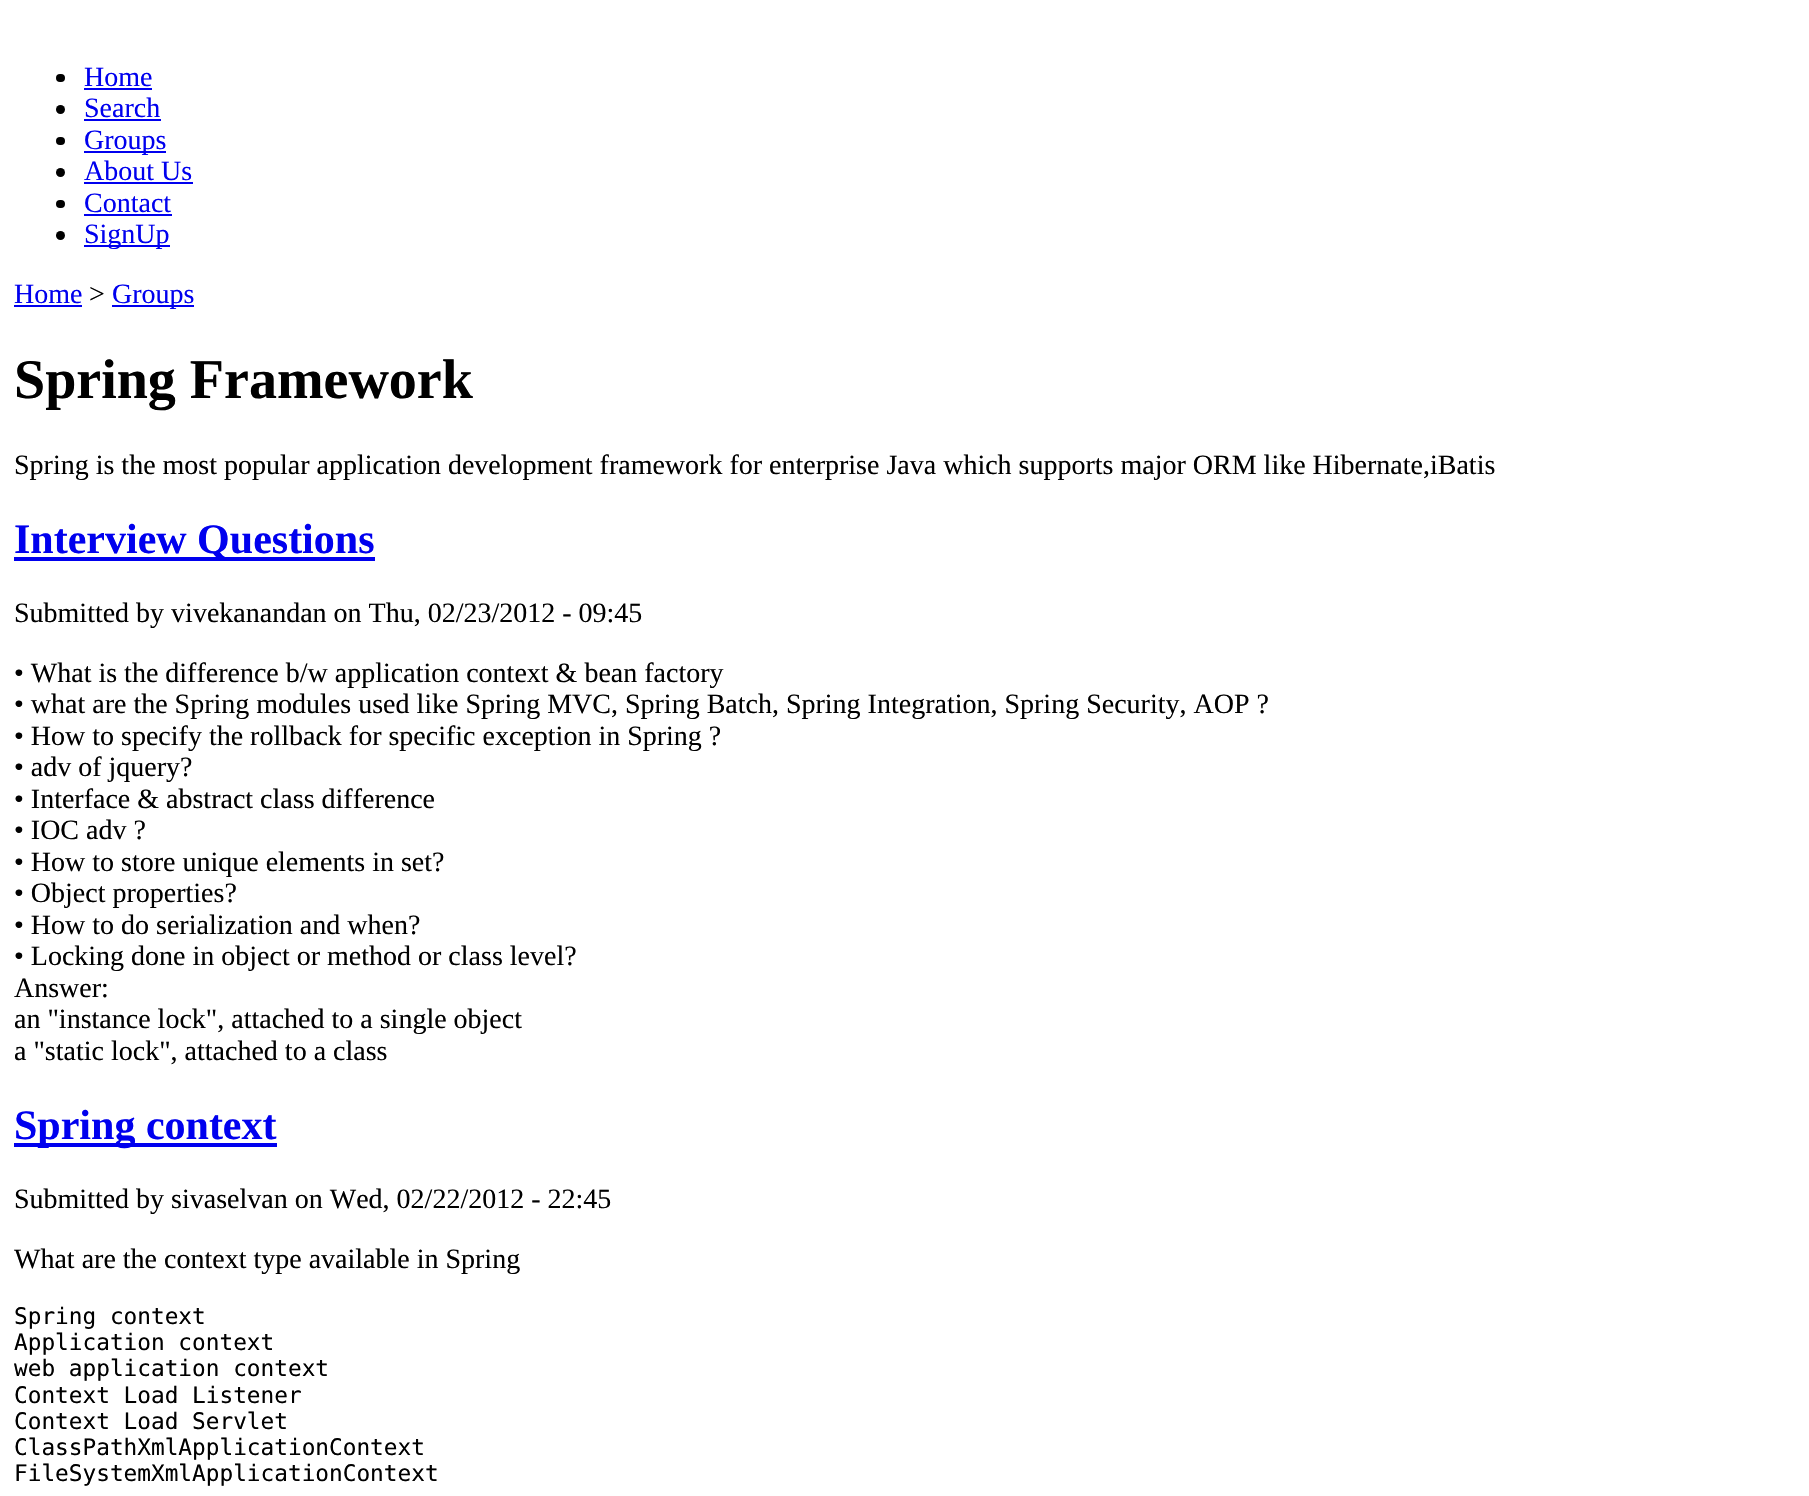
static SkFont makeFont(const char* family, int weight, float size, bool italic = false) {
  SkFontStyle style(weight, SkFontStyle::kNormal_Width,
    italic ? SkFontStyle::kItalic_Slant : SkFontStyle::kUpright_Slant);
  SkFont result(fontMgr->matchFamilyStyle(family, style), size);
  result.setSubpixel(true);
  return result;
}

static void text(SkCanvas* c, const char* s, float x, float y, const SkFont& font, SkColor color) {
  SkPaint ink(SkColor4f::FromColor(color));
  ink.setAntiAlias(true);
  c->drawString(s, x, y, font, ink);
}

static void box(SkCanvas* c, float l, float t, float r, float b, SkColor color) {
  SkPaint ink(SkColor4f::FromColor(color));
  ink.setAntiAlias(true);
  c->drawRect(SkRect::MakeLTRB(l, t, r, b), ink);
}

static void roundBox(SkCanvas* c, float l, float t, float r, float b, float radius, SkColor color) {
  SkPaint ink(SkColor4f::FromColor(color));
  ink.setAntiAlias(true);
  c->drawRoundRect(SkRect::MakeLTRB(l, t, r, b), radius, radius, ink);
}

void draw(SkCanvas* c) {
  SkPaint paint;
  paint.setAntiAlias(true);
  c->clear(0xffffffff);
  roundBox(c, 56, 74, 65, 82, 4, 0xff000000);
  SkFont face1 = makeFont("Liberation Serif", 400, 28);
  text(c, "Home", 84, 86, face1, 0xff0000ee);
  box(c, 84, 88, 152, 90, 0xff0000ee);
  paint.setColor(0xff000000);
  c->drawCircle(60.5f, 109.5f, 4.5f, paint);
  text(c, "Search", 84, 117, face1, 0xff0000ee);
  box(c, 84, 119, 161, 121, 0xff0000ee);
  roundBox(c, 56, 137, 65, 145, 4, 0xff000000);
  box(c, 84, 151, 166, 153, 0xff0000ee);
  text(c, "Groups", 84, 149, face1, 0xff0000ee);
  c->drawCircle(60.5f, 172.5f, 4.5f, paint);
  text(c, "About Us", 84, 180, face1, 0xff0000ee);
  box(c, 84, 182, 193, 184, 0xff0000ee);
  roundBox(c, 56, 200, 65, 208, 4, 0xff000000);
  text(c, "Contact", 84, 212, face1, 0xff0000ee);
  box(c, 84, 214, 172, 216, 0xff0000ee);
  c->drawCircle(60.5f, 235.5f, 4.5f, paint);
  box(c, 84, 245, 170, 247, 0xff0000ee);
  text(c, "SignUp", 84, 243, face1, 0xff0000ee);
  text(c, "Home", 14, 303, face1, 0xff0000ee);
  box(c, 14, 305, 82, 307, 0xff0000ee);
  text(c, ">", 89, 303, face1, 0xff000000);
  box(c, 112, 305, 194, 307, 0xff0000ee);
  text(c, "Groups", 112, 303, face1, 0xff0000ee);
  SkFont face2 = makeFont("Liberation Serif", 700, 56);
  text(c, "Spring Framework", 14, 398, face2, 0xff000000);
  text(c, "Spring is the most popular application development framework for enterprise Java which supports major ORM like Hibernate,iBatis", 14, 474, face1, 0xff000000);
  box(c, 14, 557, 375, 561, 0xff0000ee);
  SkFont face3 = makeFont("Liberation Serif", 700, 42);
  text(c, "Interview Questions", 14, 553, face3, 0xff0000ee);
  text(c, "Submitted by vivekanandan on Thu, 02/23/2012 - 09:45", 14, 622, face1, 0xff000000);
  text(c, "• What is the difference b/w application context & bean factory", 14, 682, face1, 0xff000000);
  text(c, "• what are the Spring modules used like Spring MVC, Spring Batch, Spring Integration, Spring Security, AOP ?", 14, 713, face1, 0xff000000);
  text(c, "• How to specify the rollback for specific exception in Spring ?", 14, 745, face1, 0xff000000);
  text(c, "• adv of jquery?", 14, 776, face1, 0xff000000);
  text(c, "• Interface & abstract class difference", 14, 808, face1, 0xff000000);
  text(c, "• IOC adv ?", 14, 839, face1, 0xff000000);
  text(c, "• How to store unique elements in set?", 14, 871, face1, 0xff000000);
  text(c, "• Object properties?", 14, 902, face1, 0xff000000);
  text(c, "• How to do serialization and when?", 14, 934, face1, 0xff000000);
  text(c, "• Locking done in object or method or class level?", 14, 965, face1, 0xff000000);
  text(c, "Answer:", 14, 997, face1, 0xff000000);
  text(c, "an \"instance lock\", attached to a single object", 14, 1028, face1, 0xff000000);
  text(c, "a \"static lock\", attached to a class", 14, 1060, face1, 0xff000000);
  box(c, 14, 1143, 277, 1147, 0xff0000ee);
  text(c, "Spring context", 14, 1139, face3, 0xff0000ee);
  text(c, "Submitted by sivaselvan on Wed, 02/22/2012 - 22:45", 14, 1208, face1, 0xff000000);
  text(c, "What are the context type available in Spring", 14, 1268, face1, 0xff000000);
  SkFont face4 = makeFont("DejaVu Sans Mono", 400, 22.75f);
  text(c, "Spring context", 14, 1324, face4, 0xff000000);
  text(c, "Application context", 14, 1350, face4, 0xff000000);
  text(c, "web application context", 14, 1376, face4, 0xff000000);
  text(c, "Context Load Listener", 14, 1403, face4, 0xff000000);
  text(c, "Context Load Servlet", 14, 1429, face4, 0xff000000);
  text(c, "ClassPathXmlApplicationContext", 14, 1455, face4, 0xff000000);
  text(c, "FileSystemXmlApplicationContext", 14, 1481, face4, 0xff000000);
}
